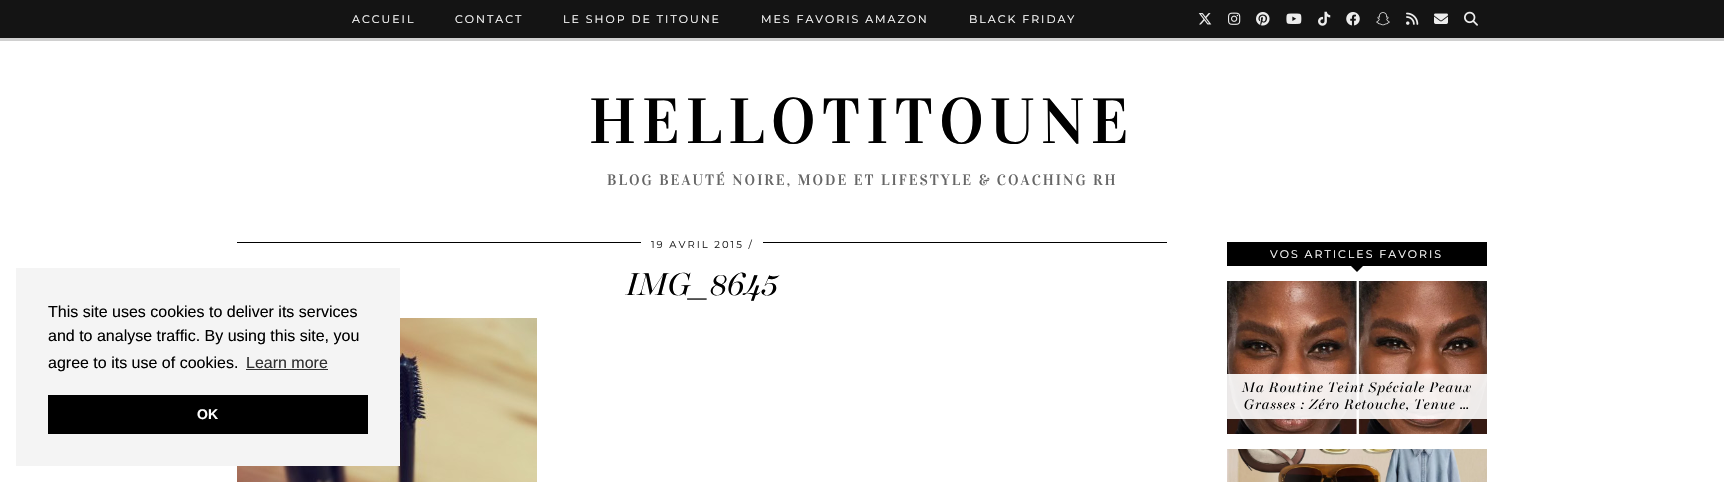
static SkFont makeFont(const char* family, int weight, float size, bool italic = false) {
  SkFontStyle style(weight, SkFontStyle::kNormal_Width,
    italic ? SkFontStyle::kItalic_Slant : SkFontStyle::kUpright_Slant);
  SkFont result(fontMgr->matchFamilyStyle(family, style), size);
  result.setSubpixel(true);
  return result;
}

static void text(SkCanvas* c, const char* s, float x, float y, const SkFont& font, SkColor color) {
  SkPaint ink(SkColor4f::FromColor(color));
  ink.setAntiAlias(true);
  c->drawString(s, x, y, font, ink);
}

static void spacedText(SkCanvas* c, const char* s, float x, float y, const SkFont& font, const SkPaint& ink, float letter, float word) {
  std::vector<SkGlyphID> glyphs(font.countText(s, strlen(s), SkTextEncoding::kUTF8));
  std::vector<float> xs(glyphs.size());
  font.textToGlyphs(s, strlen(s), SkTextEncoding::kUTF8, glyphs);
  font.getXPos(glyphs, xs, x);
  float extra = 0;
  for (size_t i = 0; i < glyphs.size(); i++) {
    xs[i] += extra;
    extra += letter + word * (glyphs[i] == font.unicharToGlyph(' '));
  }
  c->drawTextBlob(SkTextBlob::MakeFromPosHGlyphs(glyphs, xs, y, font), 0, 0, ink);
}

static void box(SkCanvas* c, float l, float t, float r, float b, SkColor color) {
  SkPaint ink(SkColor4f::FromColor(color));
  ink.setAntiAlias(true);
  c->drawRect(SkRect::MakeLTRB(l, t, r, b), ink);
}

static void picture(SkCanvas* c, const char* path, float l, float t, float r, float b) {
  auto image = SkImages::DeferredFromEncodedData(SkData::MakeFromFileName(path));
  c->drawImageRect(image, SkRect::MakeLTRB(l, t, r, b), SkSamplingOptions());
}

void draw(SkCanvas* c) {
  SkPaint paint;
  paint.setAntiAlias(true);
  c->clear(0xffffffff);
  box(c, 0, 0, 1724, 38, 0xff141414);
  box(c, 0, 38, 1724, 41, 0xffd0d0d0);
  SkFont face1 = makeFont("Montserrat", 100, 11);
  paint.setColor(0xffffffff);
  spacedText(c, "ACCUEIL", 352, 23, face1, paint, 2, 0);
  spacedText(c, "CONTACT", 455, 23, face1, paint, 2, 0);
  spacedText(c, "LE SHOP DE TITOUNE", 563, 23, face1, paint, 2, 0);
  spacedText(c, "MES FAVORIS AMAZON", 761, 23, face1, paint, 2, 0);
  spacedText(c, "BLACK FRIDAY", 969, 23, face1, paint, 2, 0);
  picture(c, "img_01.png", 1198, 13, 1212, 25);
  picture(c, "img_02.png", 1228, 12, 1241, 25);
  picture(c, "img_03.png", 1256, 12, 1270, 26);
  picture(c, "img_04.png", 1286, 13, 1302, 24);
  picture(c, "img_05.png", 1318, 11, 1331, 26);
  picture(c, "img_06.png", 1346, 12, 1360, 26);
  picture(c, "img_07.png", 1376, 12, 1390, 26);
  picture(c, "img_08.png", 1406, 12, 1419, 25);
  picture(c, "img_09.png", 1434, 13, 1448, 24);
  picture(c, "img_10.png", 1464, 11, 1478, 26);
  SkFont face2 = makeFont("Vidaloka", 400, 64);
  paint.setColor(0xff000000);
  spacedText(c, "HELLOTITOUNE", 589, 143, face2, paint, 6, 0);
  SkFont face3 = makeFont("Vidaloka", 400, 15);
  paint.setColor(0xff666666);
  spacedText(c, "BLOG BEAUTÉ NOIRE, MODE ET LIFESTYLE & COACHING RH", 607, 185, face3, paint, 2, 0);
  picture(c, "img_11.png", 237, 318, 537, 482);
  box(c, 16, 268, 400, 466, 0xfff4f4f4);
  SkFont face4 = makeFont("Liberation Sans", 400, 16);
  text(c, "This site uses cookies to deliver its services", 48, 317, face4, 0xff000000);
  text(c, "and to analyse traffic. By using this site, you", 48, 341, face4, 0xff000000);
  text(c, "agree to its use of cookies.", 48, 368, face4, 0xff000000);
  text(c, "Learn more", 246, 368, face4, 0xff313131);
  box(c, 246, 369, 328, 370, 0xff313131);
  box(c, 48, 395, 368, 434, 0xff000000);
  SkFont face5 = makeFont("Liberation Sans", 700, 14);
  text(c, "OK", 197, 419, face5, 0xffffffff);
  box(c, 237, 242, 1167, 243, 0xff000000);
  box(c, 641, 242, 743, 243, 0xffffffff);
  box(c, 743, 238, 753, 251, 0xffffffff);
  SkFont face6 = makeFont("Montserrat", 100, 10);
  paint.setColor(0xff222222);
  spacedText(c, "19 AVRIL 2015 /", 651, 248, face6, paint, 2, 0);
  box(c, 753, 242, 763, 243, 0xffffffff);
  SkFont face7 = makeFont("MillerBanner", 400, 32, true);
  text(c, "IMG_8645", 626, 295, face7, 0xff000000);
  box(c, 1227, 242, 1487, 266, 0xff000000);
  paint.setColor(0xffffffff);
  spacedText(c, "VOS ARTICLES FAVORIS", 1270, 258, face1, paint, 2, 0);
  paint.setColor(0xff000000);
  c->drawPath(SkPathBuilder().moveTo(1351, 266).lineTo(1363, 266).lineTo(1357, 272).close().detach(), paint);
  picture(c, "img_12.png", 1227, 281, 1487, 434);
  box(c, 1227, 374, 1487, 419, 0xe6ffffff);
  SkFont face8 = makeFont("MillerBanner", 400, 14, true);
  spacedText(c, "Ma Routine Teint Spéciale Peaux", 1242, 392, face8, paint, 1, 0);
  spacedText(c, "Grasses : Zéro Retouche, Tenue …", 1244, 409, face8, paint, 1, 0);
  picture(c, "img_13.png", 1227, 449, 1487, 482);
}
